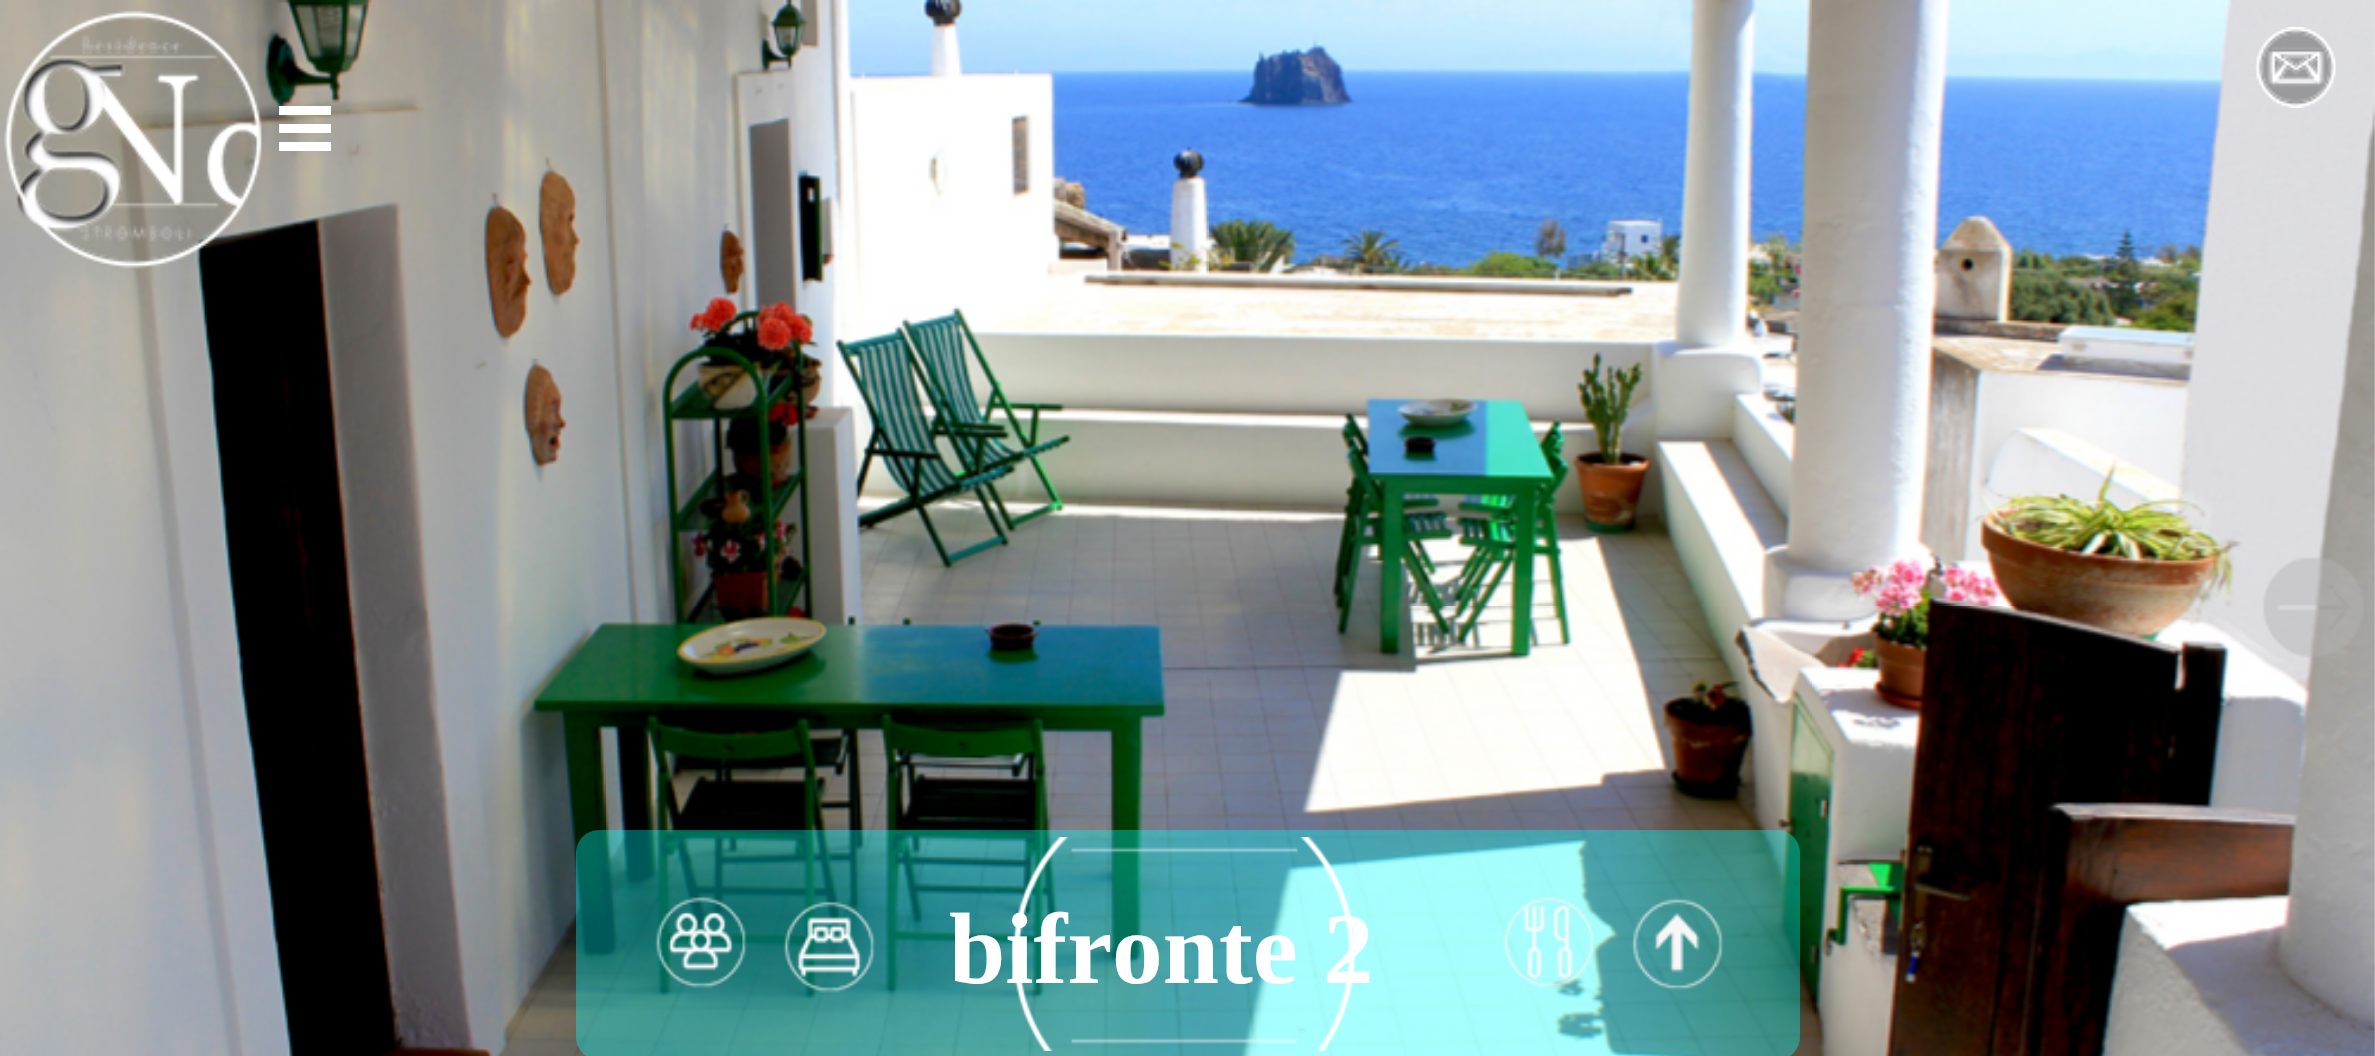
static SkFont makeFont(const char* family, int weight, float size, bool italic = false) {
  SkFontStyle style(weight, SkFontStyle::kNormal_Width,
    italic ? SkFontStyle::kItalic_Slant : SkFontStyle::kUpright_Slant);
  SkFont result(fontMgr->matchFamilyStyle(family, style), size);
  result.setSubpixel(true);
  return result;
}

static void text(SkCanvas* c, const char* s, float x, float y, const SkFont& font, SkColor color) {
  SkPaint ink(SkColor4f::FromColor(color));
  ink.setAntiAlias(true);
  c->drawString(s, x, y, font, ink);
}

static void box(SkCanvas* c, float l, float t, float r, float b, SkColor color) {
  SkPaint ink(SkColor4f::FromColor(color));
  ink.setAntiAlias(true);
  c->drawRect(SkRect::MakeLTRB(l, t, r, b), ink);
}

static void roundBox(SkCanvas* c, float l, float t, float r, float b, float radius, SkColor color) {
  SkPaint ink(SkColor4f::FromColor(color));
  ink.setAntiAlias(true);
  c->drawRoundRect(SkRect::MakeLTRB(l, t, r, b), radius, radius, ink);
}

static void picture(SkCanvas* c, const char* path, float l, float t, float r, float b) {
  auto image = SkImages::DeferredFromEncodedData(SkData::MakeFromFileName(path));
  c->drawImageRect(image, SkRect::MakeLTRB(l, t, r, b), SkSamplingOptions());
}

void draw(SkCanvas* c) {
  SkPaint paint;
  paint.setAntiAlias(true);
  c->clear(0xffffffff);
  picture(c, "img_01.png", 0, 0, 2375, 1056);
  picture(c, "img_02.png", 2263, 557, 2364, 658);
  picture(c, "img_03.png", 4, 10, 262, 269);
  picture(c, "img_04.png", 2255, 27, 2336, 108);
  box(c, 279, 106, 331, 115, 0xffffffff);
  box(c, 279, 124, 331, 133, 0xffffffff);
  box(c, 279, 142, 331, 151, 0xffffffff);
  roundBox(c, 576, 830, 1800, 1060, 23, 0x5900ffff);
  picture(c, "img_05.png", 655, 897, 747, 989);
  picture(c, "img_06.png", 783, 901, 876, 993);
  picture(c, "img_07.png", 1011, 837, 1356, 1051);
  picture(c, "img_08.png", 1502, 897, 1594, 988);
  picture(c, "img_09.png", 1631, 897, 1724, 990);
  SkFont face1 = makeFont("Liberation Serif", 700, 101.25f);
  text(c, "bifronte 2", 949, 983, face1, 0xffffffff);
}
